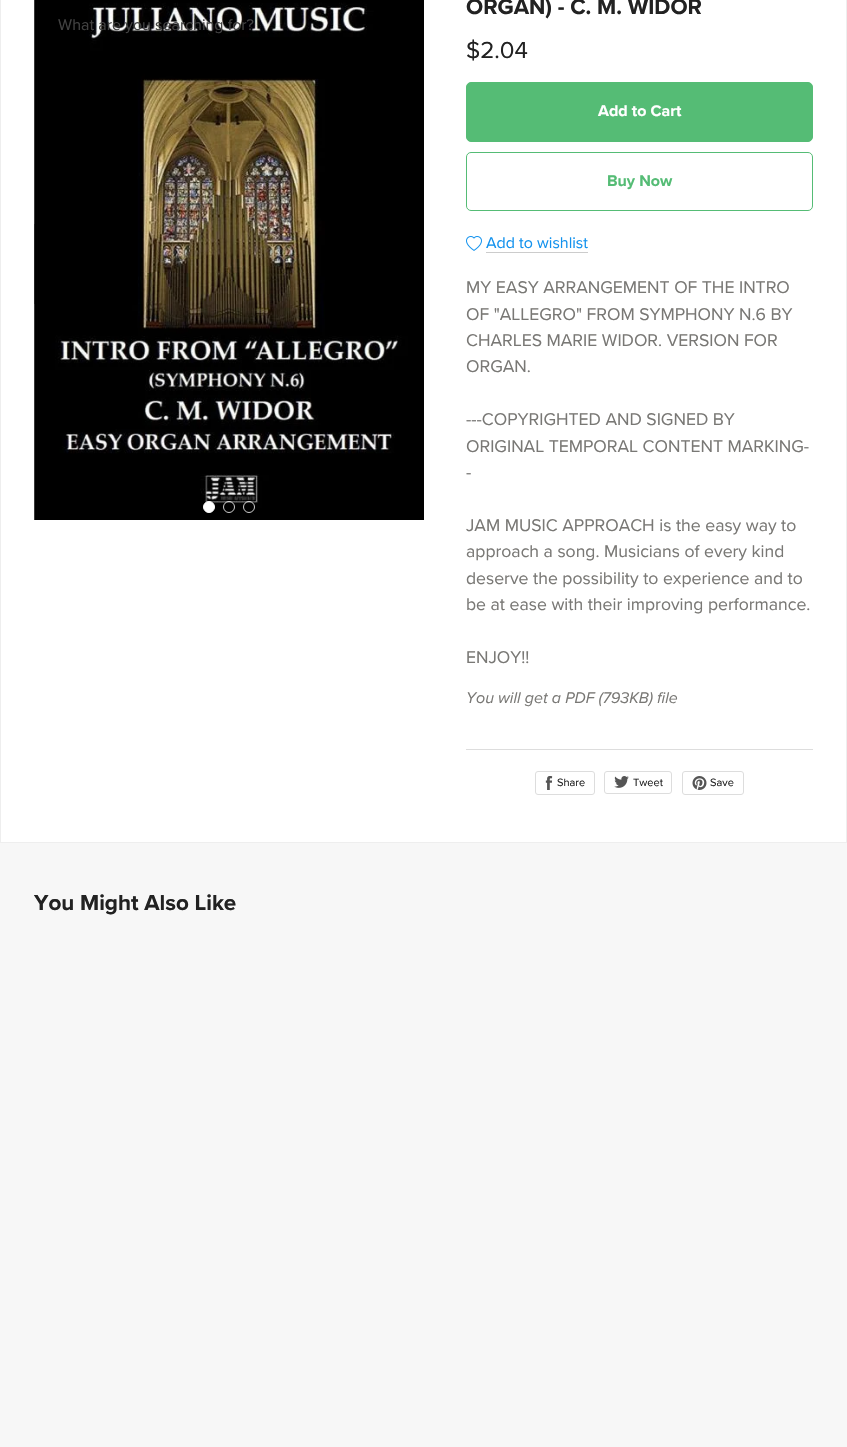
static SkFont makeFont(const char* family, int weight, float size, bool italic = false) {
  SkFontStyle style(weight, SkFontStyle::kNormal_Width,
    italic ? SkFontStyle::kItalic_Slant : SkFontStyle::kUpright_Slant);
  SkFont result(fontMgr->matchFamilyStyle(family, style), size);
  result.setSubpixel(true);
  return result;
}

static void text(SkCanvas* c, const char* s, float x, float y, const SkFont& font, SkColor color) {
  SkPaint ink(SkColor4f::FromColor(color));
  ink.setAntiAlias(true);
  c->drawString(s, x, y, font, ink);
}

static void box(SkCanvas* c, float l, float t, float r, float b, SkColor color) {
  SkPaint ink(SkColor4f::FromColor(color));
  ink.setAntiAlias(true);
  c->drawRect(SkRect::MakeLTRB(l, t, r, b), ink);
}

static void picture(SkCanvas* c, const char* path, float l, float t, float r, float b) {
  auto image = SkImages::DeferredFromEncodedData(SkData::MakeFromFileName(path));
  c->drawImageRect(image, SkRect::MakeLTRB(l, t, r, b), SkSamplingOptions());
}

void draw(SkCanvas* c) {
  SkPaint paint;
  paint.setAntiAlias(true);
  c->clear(0xfff7f7f7);
  paint.setColor(0xffffffff);
  c->drawRect(SkRect::MakeLTRB(0.5f, -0.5f, 846.5f, 842.5f), paint);
  paint.setStyle(SkPaint::kStroke_Style);
  paint.setStrokeWidth(1);
  paint.setColor(0xffeeeeee);
  c->drawRect(SkRect::MakeLTRB(0.5f, -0.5f, 846.5f, 842.5f), paint);
  picture(c, "img_01.png", 34, 0, 424, 520);
  box(c, 34, 224, 35, 304, 0x59000000);
  paint.setStyle(SkPaint::kFill_Style);
  paint.setColor(0xffffffff);
  c->drawCircle(209, 507, 5.5f, paint);
  paint.setStyle(SkPaint::kStroke_Style);
  c->drawCircle(209, 507, 5.5f, paint);
  paint.setColor(0xccffffff);
  c->drawCircle(229, 507, 5.5f, paint);
  c->drawCircle(249, 507, 5.5f, paint);
  SkFont face1 = makeFont("Proxima Nova", 700, 22.4f);
  text(c, "ORGAN) - C. M. WIDOR", 466, 14, face1, 0xff222222);
  SkFont face2 = makeFont("Proxima Nova", 400, 24);
  text(c, "$2.04", 466, 58, face2, 0xff222222);
  paint.setStyle(SkPaint::kFill_Style);
  paint.setColor(0xff55bc75);
  c->drawRoundRect(SkRect::MakeLTRB(466.5f, 82.5f, 812.5f, 141.5f), 4.5f, 4.5f, paint);
  paint.setStyle(SkPaint::kStroke_Style);
  c->drawRoundRect(SkRect::MakeLTRB(466.5f, 82.5f, 812.5f, 141.5f), 4.5f, 4.5f, paint);
  SkFont face3 = makeFont("Proxima Nova", 700, 16);
  text(c, "Add to Cart", 598, 116, face3, 0xffffffff);
  c->drawRoundRect(SkRect::MakeLTRB(466.5f, 152.5f, 812.5f, 210.5f), 4.5f, 4.5f, paint);
  text(c, "Buy Now", 607, 186, face3, 0xff55bc75);
  picture(c, "img_02.png", 466, 236, 482, 251);
  SkFont face4 = makeFont("Proxima Nova", 400, 16);
  text(c, "Add to wishlist", 486, 248, face4, 0xff1292ee);
  box(c, 486, 252, 588, 253, 0xffcccccc);
  SkFont face5 = makeFont("Proxima Nova", 400, 17.6f);
  text(c, "MY EASY ARRANGEMENT OF THE INTRO", 466, 293, face5, 0xff797875);
  text(c, "OF \"ALLEGRO\" FROM SYMPHONY N.6 BY", 466, 320, face5, 0xff797875);
  text(c, "CHARLES MARIE WIDOR. VERSION FOR", 466, 346, face5, 0xff797875);
  text(c, "ORGAN.", 466, 372, face5, 0xff797875);
  text(c, "---COPYRIGHTED AND SIGNED BY", 466, 425, face5, 0xff797875);
  text(c, "ORIGINAL TEMPORAL CONTENT MARKING-", 466, 452, face5, 0xff797875);
  text(c, "-", 466, 478, face5, 0xff797875);
  text(c, "JAM MUSIC APPROACH is the easy way to", 466, 531, face5, 0xff797875);
  text(c, "approach a song. Musicians of every kind", 466, 557, face5, 0xff797875);
  text(c, "deserve the possibility to experience and to", 466, 584, face5, 0xff797875);
  text(c, "be at ease with their improving performance.", 466, 610, face5, 0xff797875);
  text(c, "ENJOY!!", 466, 663, face5, 0xff797875);
  SkFont face6 = makeFont("Proxima Nova", 400, 16, true);
  text(c, "You will get a PDF (793KB) file", 466, 703, face6, 0xff797875);
  box(c, 466, 749, 813, 750, 0xffdddddd);
  paint.setColor(0xffdddddd);
  c->drawRoundRect(SkRect::MakeLTRB(535.5f, 771.5f, 594.5f, 794.5f), 2.5f, 2.5f, paint);
  picture(c, "img_03.png", 545, 776, 553, 790);
  SkFont face7 = makeFont("Proxima Nova", 400, 11);
  text(c, "Share", 557, 786, face7, 0xff222222);
  c->drawRoundRect(SkRect::MakeLTRB(604.5f, 771.5f, 671.5f, 793.5f), 2.5f, 2.5f, paint);
  picture(c, "img_04.png", 614, 776, 629, 788);
  text(c, "Tweet", 633, 786, face7, 0xff222222);
  c->drawRoundRect(SkRect::MakeLTRB(682.5f, 771.5f, 743.5f, 794.5f), 2.5f, 2.5f, paint);
  picture(c, "img_05.png", 692, 776, 707, 790);
  text(c, "Save", 710, 786, face7, 0xff222222);
  text(c, "You Might Also Like", 34, 910, face1, 0xff222222);
  text(c, "What are you searching for?", 58, 30, face4, 0xff424242);
}
